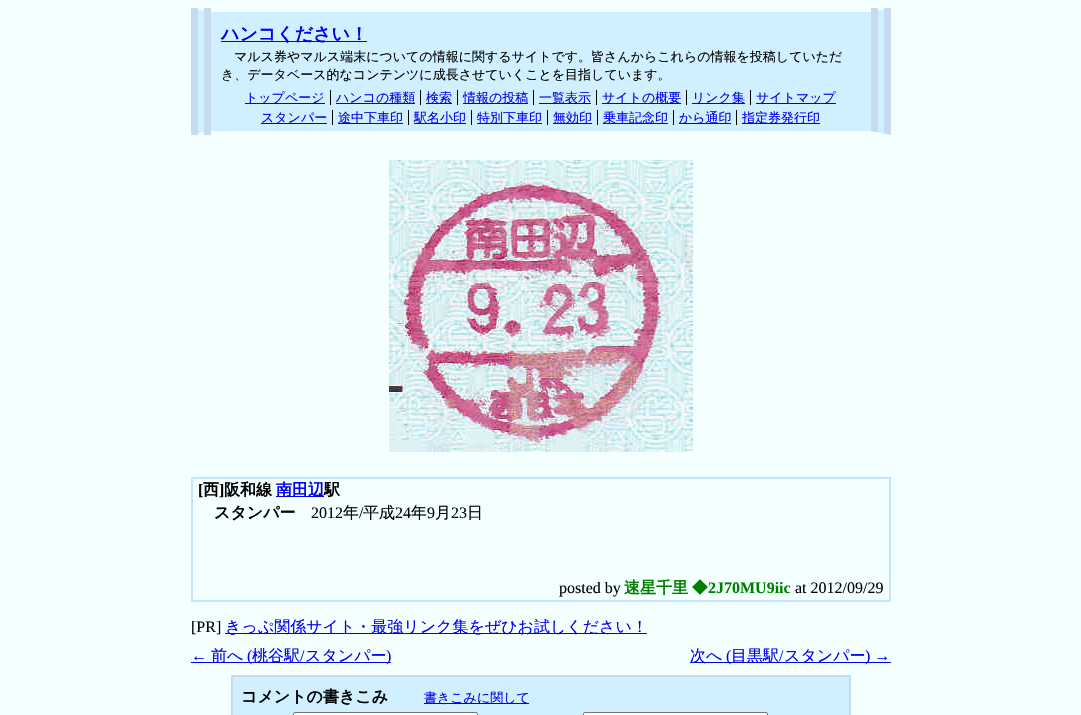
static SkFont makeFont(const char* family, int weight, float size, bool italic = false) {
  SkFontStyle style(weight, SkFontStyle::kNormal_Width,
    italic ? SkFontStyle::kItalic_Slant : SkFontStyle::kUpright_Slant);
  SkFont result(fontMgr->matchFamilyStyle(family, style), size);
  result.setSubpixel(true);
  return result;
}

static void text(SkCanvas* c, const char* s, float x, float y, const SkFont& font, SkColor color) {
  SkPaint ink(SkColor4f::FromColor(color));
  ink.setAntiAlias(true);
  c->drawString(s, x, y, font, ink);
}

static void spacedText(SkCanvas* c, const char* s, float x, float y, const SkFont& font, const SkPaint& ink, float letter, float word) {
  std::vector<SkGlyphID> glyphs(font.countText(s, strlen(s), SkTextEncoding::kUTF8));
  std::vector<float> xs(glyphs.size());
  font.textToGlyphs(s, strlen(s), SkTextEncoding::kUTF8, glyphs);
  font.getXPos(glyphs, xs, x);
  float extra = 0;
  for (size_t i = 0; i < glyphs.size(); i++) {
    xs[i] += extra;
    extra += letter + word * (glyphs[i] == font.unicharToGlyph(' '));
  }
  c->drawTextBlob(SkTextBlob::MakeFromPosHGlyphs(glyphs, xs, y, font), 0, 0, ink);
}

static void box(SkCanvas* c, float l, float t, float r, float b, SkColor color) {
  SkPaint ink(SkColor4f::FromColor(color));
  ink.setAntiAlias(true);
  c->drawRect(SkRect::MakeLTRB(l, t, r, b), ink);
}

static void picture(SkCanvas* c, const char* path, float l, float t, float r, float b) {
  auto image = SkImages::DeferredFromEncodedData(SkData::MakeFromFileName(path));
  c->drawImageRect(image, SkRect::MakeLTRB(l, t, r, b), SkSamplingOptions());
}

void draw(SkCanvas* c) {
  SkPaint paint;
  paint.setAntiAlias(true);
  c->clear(0xfff4ffff);
  box(c, 198, 9, 884, 134, 0xffd0f0ff);
  paint.setColor(0xfff4ffff);
  c->drawPath(SkPathBuilder().moveTo(191, 8).lineTo(891, 8).lineTo(871, 12).lineTo(211, 12).close().detach(), paint);
  box(c, 871, 8, 878, 135, 0xffc7dbef);
  box(c, 884, 8, 891, 135, 0xffc7dbef);
  c->drawPath(SkPathBuilder().moveTo(891, 135).lineTo(191, 135).lineTo(211, 131).lineTo(871, 131).close().detach(), paint);
  box(c, 191, 8, 198, 135, 0xffc7dbef);
  box(c, 204, 8, 211, 135, 0xffc7dbef);
  box(c, 221, 41, 367, 42, 0xff0000ee);
  SkFont face1 = makeFont("WenQuanYi Zen Hei", 700, 18);
  text(c, "ハンコください！", 221, 40, face1, 0xff0000ee);
  SkFont face2 = makeFont("WenQuanYi Zen Hei", 500, 13);
  text(c, "マルス券やマルス端末についての情報に関するサイトです。皆さんからこれらの情報を投稿していただ", 234, 61, face2, 0xff000000);
  text(c, "き、データベース的なコンテンツに成長させていくことを目指しています。", 221, 79, face2, 0xff000000);
  box(c, 245, 103, 325, 104, 0xff0000ee);
  text(c, "トップページ", 245, 102, face2, 0xff0000ee);
  box(c, 330, 90, 331, 105, 0xff000000);
  box(c, 336, 103, 415, 104, 0xff0000ee);
  text(c, "ハンコの種類", 336, 102, face2, 0xff0000ee);
  box(c, 420, 90, 421, 105, 0xff000000);
  box(c, 426, 103, 452, 104, 0xff0000ee);
  text(c, "検索", 426, 102, face2, 0xff0000ee);
  box(c, 457, 90, 458, 105, 0xff000000);
  box(c, 463, 103, 528, 104, 0xff0000ee);
  text(c, "情報の投稿", 463, 102, face2, 0xff0000ee);
  box(c, 533, 90, 534, 105, 0xff000000);
  box(c, 539, 103, 591, 104, 0xff0000ee);
  text(c, "一覧表示", 539, 102, face2, 0xff0000ee);
  box(c, 596, 90, 597, 105, 0xff000000);
  box(c, 602, 103, 681, 104, 0xff0000ee);
  text(c, "サイトの概要", 602, 102, face2, 0xff0000ee);
  box(c, 686, 90, 687, 105, 0xff000000);
  box(c, 692, 103, 745, 104, 0xff0000ee);
  text(c, "リンク集", 692, 102, face2, 0xff0000ee);
  box(c, 750, 90, 751, 105, 0xff000000);
  box(c, 756, 103, 836, 104, 0xff0000ee);
  text(c, "サイトマップ", 756, 102, face2, 0xff0000ee);
  box(c, 261, 123, 327, 124, 0xff0000ee);
  text(c, "スタンパー", 261, 122, face2, 0xff0000ee);
  box(c, 332, 110, 333, 125, 0xff000000);
  box(c, 338, 123, 403, 124, 0xff0000ee);
  text(c, "途中下車印", 338, 122, face2, 0xff0000ee);
  box(c, 408, 110, 409, 125, 0xff000000);
  box(c, 414, 123, 466, 124, 0xff0000ee);
  text(c, "駅名小印", 414, 122, face2, 0xff0000ee);
  box(c, 471, 110, 472, 125, 0xff000000);
  box(c, 477, 123, 542, 124, 0xff0000ee);
  text(c, "特別下車印", 477, 122, face2, 0xff0000ee);
  box(c, 547, 110, 548, 125, 0xff000000);
  box(c, 553, 123, 592, 124, 0xff0000ee);
  text(c, "無効印", 553, 122, face2, 0xff0000ee);
  box(c, 597, 110, 598, 125, 0xff000000);
  box(c, 603, 123, 668, 124, 0xff0000ee);
  text(c, "乗車記念印", 603, 122, face2, 0xff0000ee);
  box(c, 673, 110, 674, 125, 0xff000000);
  box(c, 679, 123, 731, 124, 0xff0000ee);
  text(c, "から通印", 679, 122, face2, 0xff0000ee);
  box(c, 736, 110, 737, 125, 0xff000000);
  box(c, 742, 123, 820, 124, 0xff0000ee);
  text(c, "指定券発行印", 742, 122, face2, 0xff0000ee);
  picture(c, "img_01.png", 389, 160, 693, 452);
  box(c, 191, 477, 891, 479, 0xffc5e4ff);
  box(c, 889, 477, 891, 602, 0xffc5e4ff);
  box(c, 191, 600, 891, 602, 0xffc5e4ff);
  box(c, 191, 477, 193, 602, 0xffc5e4ff);
  SkFont face3 = makeFont("Liberation Serif", 700, 16);
  text(c, "[", 198, 495, face3, 0xff000000);
  SkFont face4 = makeFont("WenQuanYi Zen Hei", 700, 16);
  text(c, "西", 203, 495, face4, 0xff000000);
  text(c, "]", 219, 495, face3, 0xff000000);
  text(c, "阪和線", 224, 495, face4, 0xff000000);
  box(c, 276, 496, 324, 497, 0xff0000ee);
  text(c, "南田辺", 276, 495, face4, 0xff0000ee);
  text(c, "駅", 324, 495, face4, 0xff000000);
  text(c, "スタンパー", 214, 518, face4, 0xff000000);
  SkFont face5 = makeFont("Liberation Serif", 400, 16);
  text(c, "2012", 311, 518, face5, 0xff000000);
  SkFont face6 = makeFont("WenQuanYi Zen Hei", 500, 16);
  text(c, "年", 343, 518, face6, 0xff000000);
  text(c, "/", 359, 518, face5, 0xff000000);
  text(c, "平成", 363, 518, face6, 0xff000000);
  text(c, "24", 395, 518, face5, 0xff000000);
  text(c, "年", 411, 518, face6, 0xff000000);
  text(c, "9", 427, 518, face5, 0xff000000);
  text(c, "月", 435, 518, face6, 0xff000000);
  text(c, "23", 451, 518, face5, 0xff000000);
  text(c, "日", 467, 518, face6, 0xff000000);
  text(c, "posted by", 559, 593, face5, 0xff000000);
  paint.setColor(0xff008000);
  spacedText(c, "速星千里 ◆", 624, 593, face4, paint, 0, -1);
  text(c, "2J70MU9iic", 708, 593, face3, 0xff008000);
  text(c, "at 2012/09/29", 795, 593, face5, 0xff000000);
  text(c, "[PR]", 191, 632, face5, 0xff000000);
  box(c, 225, 633, 647, 634, 0xff0000ee);
  text(c, "きっぷ関係サイト・最強リンク集をぜひお試しください！", 225, 632, face6, 0xff0000ee);
  text(c, "←", 191, 661, face5, 0xff0000ee);
  box(c, 191, 662, 391, 663, 0xff0000ee);
  text(c, "前へ", 211, 661, face6, 0xff0000ee);
  text(c, "(", 247, 661, face5, 0xff0000ee);
  text(c, "桃谷駅", 252, 661, face6, 0xff0000ee);
  text(c, "/", 300, 661, face5, 0xff0000ee);
  text(c, "スタンパー", 305, 661, face6, 0xff0000ee);
  text(c, ")", 386, 661, face5, 0xff0000ee);
  box(c, 690, 662, 891, 663, 0xff0000ee);
  text(c, "次へ", 690, 661, face6, 0xff0000ee);
  text(c, "(", 726, 661, face5, 0xff0000ee);
  text(c, "目黒駅", 731, 661, face6, 0xff0000ee);
  text(c, "/", 779, 661, face5, 0xff0000ee);
  text(c, "スタンパー", 784, 661, face6, 0xff0000ee);
  text(c, ") →", 865, 661, face5, 0xff0000ee);
  paint.setColor(0xffd0f0ff);
  c->drawRect(SkRect::MakeLTRB(232, 676, 850, 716), paint);
  paint.setStyle(SkPaint::kStroke_Style);
  paint.setStrokeWidth(2);
  paint.setColor(0xffc7dbef);
  c->drawRect(SkRect::MakeLTRB(232, 676, 850, 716), paint);
  text(c, "コメントの書きこみ", 241, 702, face4, 0xff000000);
  box(c, 424, 703, 529, 704, 0xff0000ee);
  text(c, "書きこみに関して", 424, 702, face2, 0xff0000ee);
  paint.setStyle(SkPaint::kFill_Style);
  paint.setColor(0xffffffff);
  c->drawRoundRect(SkRect::MakeLTRB(293.5f, 712.5f, 477.5f, 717.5f), 1.5f, 1.5f, paint);
  paint.setStyle(SkPaint::kStroke_Style);
  paint.setStrokeWidth(1);
  paint.setColor(0xff767676);
  c->drawRoundRect(SkRect::MakeLTRB(293.5f, 712.5f, 477.5f, 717.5f), 1.5f, 1.5f, paint);
  paint.setStyle(SkPaint::kFill_Style);
  paint.setColor(0xffffffff);
  c->drawRoundRect(SkRect::MakeLTRB(583.5f, 712.5f, 767.5f, 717.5f), 1.5f, 1.5f, paint);
  paint.setStyle(SkPaint::kStroke_Style);
  paint.setColor(0xff767676);
  c->drawRoundRect(SkRect::MakeLTRB(583.5f, 712.5f, 767.5f, 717.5f), 1.5f, 1.5f, paint);
}
